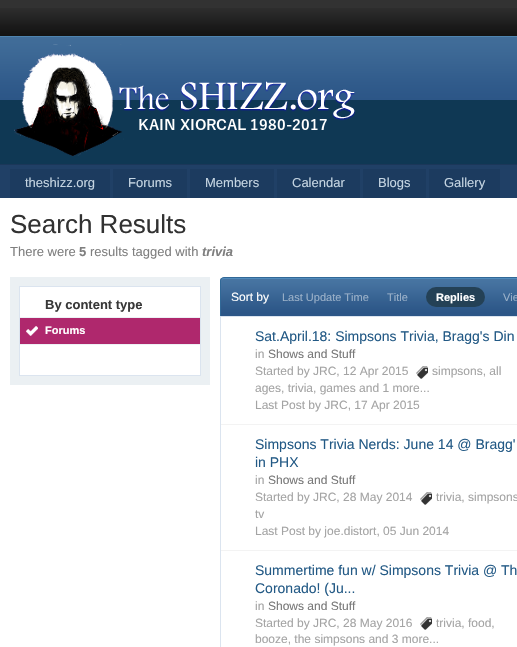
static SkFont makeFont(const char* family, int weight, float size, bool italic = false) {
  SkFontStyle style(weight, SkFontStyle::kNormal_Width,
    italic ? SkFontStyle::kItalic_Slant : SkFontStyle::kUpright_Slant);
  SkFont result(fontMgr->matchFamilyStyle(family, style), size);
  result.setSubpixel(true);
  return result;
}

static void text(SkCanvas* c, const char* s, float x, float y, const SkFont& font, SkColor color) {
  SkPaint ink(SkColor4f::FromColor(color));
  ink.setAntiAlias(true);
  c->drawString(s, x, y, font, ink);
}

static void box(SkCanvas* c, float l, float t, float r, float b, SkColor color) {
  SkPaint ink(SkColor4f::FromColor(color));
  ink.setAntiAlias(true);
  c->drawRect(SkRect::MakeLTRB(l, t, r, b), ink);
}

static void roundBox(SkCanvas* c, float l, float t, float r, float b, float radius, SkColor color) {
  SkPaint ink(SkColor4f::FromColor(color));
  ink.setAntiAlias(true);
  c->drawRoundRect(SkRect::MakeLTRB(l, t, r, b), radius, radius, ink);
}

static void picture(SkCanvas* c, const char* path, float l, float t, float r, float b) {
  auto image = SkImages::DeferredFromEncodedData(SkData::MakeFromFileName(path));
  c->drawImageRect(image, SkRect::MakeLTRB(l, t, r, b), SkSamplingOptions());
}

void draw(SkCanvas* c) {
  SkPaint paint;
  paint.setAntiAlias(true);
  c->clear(0xff323232);
  picture(c, "img_01.png", 0, 8, 517, 36);
  box(c, 0, 100, 517, 164, 0xff0f3854);
  picture(c, "img_02.png", 0, 36, 517, 100);
  box(c, 0, 164, 517, 165, 0xff1b3759);
  picture(c, "img_03.png", 14, 44, 356, 156);
  box(c, 0, 165, 517, 198, 0xff204066);
  box(c, 10, 169, 110, 198, 0xff1c3b5f);
  SkFont face1 = makeFont("Liberation Sans", 400, 13);
  text(c, "theshizz.org", 25, 187, face1, 0xffc5d5e2);
  box(c, 113, 169, 187, 198, 0xff1c3b5f);
  text(c, "Forums", 128, 187, face1, 0xffc5d5e2);
  box(c, 190, 169, 274, 198, 0xff1c3b5f);
  text(c, "Members", 205, 187, face1, 0xffc5d5e2);
  box(c, 277, 169, 360, 198, 0xff1c3b5f);
  text(c, "Calendar", 292, 187, face1, 0xffc5d5e2);
  box(c, 363, 169, 426, 198, 0xff1c3b5f);
  text(c, "Blogs", 378, 187, face1, 0xffc5d5e2);
  box(c, 429, 169, 500, 198, 0xff1c3b5f);
  text(c, "Gallery", 444, 187, face1, 0xffc5d5e2);
  box(c, 0, 198, 517, 647, 0xffffffff);
  SkFont face2 = makeFont("Liberation Sans", 400, 26);
  text(c, "Search Results", 10, 233, face2, 0xff323232);
  text(c, "There were", 10, 256, face1, 0xff7f7f7f);
  SkFont face3 = makeFont("Liberation Sans", 700, 13);
  text(c, "5", 79, 256, face3, 0xff7f7f7f);
  text(c, "results tagged with", 90, 256, face1, 0xff7f7f7f);
  SkFont face4 = makeFont("Liberation Sans", 700, 13, true);
  text(c, "trivia", 202, 256, face4, 0xff7f7f7f);
  box(c, 10, 277, 210, 385, 0xffebf0f3);
  paint.setColor(0xffffffff);
  c->drawRect(SkRect::MakeLTRB(19.5f, 286.5f, 200.5f, 375.5f), paint);
  paint.setStyle(SkPaint::kStroke_Style);
  paint.setStrokeWidth(1);
  paint.setColor(0xffdbe4ef);
  c->drawRect(SkRect::MakeLTRB(19.5f, 286.5f, 200.5f, 375.5f), paint);
  text(c, "By content type", 45, 309, face3, 0xff383838);
  box(c, 20, 317, 200, 318, 0xffedf1f5);
  box(c, 20, 344, 200, 345, 0xffedf1f5);
  box(c, 20, 318, 200, 344, 0xffaf286d);
  picture(c, "img_04.png", 26, 326, 38, 336);
  SkFont face5 = makeFont("Liberation Sans", 700, 11);
  text(c, "Forums", 45, 334, face5, 0xffffffff);
  box(c, 221, 313, 517, 316, 0xff2c5687);
  picture(c, "img_05.png", 220, 278, 517, 313);
  paint.setStyle(SkPaint::kFill_Style);
  paint.setColor(0xff528cbc);
  c->drawPath(SkPathBuilder().moveTo(224, 279).lineTo(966, 279).cubicTo(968, 279, 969, 280, 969, 282).cubicTo(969, 280, 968, 278, 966, 278).lineTo(224, 278).cubicTo(222, 278, 221, 280, 221, 282).cubicTo(221, 280, 222, 279, 224, 279).close().detach(), paint);
  paint.setColor(0xff316897);
  c->drawPath(SkPathBuilder(SkPathFillType::kEvenOdd).moveTo(224, 277).lineTo(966, 277).cubicTo(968, 277, 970, 279, 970, 281).lineTo(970, 316).lineTo(220, 316).lineTo(220, 281).cubicTo(220, 279, 222, 277, 224, 277).close().moveTo(224, 278).lineTo(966, 278).cubicTo(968, 278, 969, 279, 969, 281).lineTo(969, 316).lineTo(221, 316).lineTo(221, 281).cubicTo(221, 279, 222, 278, 224, 278).close().detach(), paint);
  SkFont face6 = makeFont("Liberation Sans", 400, 12);
  text(c, "Sort by", 231, 301, face6, 0xffffffff);
  SkFont face7 = makeFont("Liberation Sans", 400, 11);
  text(c, "Last Update Time", 282, 301, face7, 0xff9bb1c9);
  text(c, "Title", 387, 301, face7, 0xff9bb1c9);
  roundBox(c, 426, 287, 485, 307, 10, 0xff244156);
  text(c, "Replies", 436, 301, face5, 0xffffffff);
  text(c, "Vie", 503, 301, face7, 0xff9bb1c9);
  paint.setStyle(SkPaint::kStroke_Style);
  paint.setColor(0xffdbe4ef);
  c->drawRect(SkRect::MakeLTRB(220.5f, 316.5f, 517.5f, 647.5f), paint);
  box(c, 221, 424, 517, 425, 0xfff3f3f3);
  SkFont face8 = makeFont("Liberation Sans", 400, 14);
  text(c, "Sat.April.18: Simpsons Trivia, Bragg's Din", 255, 341, face8, 0xff225985);
  text(c, "in", 255, 358, face6, 0xffa4a4a4);
  text(c, "Shows and Stuff", 268, 358, face6, 0xff777777);
  text(c, "Started by JRC, 12 Apr 2015", 255, 375, face6, 0xffa4a4a4);
  picture(c, "img_06.png", 416, 366, 428, 379);
  text(c, "simpsons, all", 432, 375, face6, 0xffa4a4a4);
  text(c, "ages, trivia, games and 1 more...", 255, 392, face6, 0xffa4a4a4);
  text(c, "Last Post by JRC, 17 Apr 2015", 255, 409, face6, 0xffa4a4a4);
  box(c, 221, 550, 517, 551, 0xfff3f3f3);
  text(c, "Simpsons Trivia Nerds: June 14 @ Bragg'", 255, 449, face8, 0xff225985);
  text(c, "in PHX", 255, 467, face8, 0xff225985);
  text(c, "in", 255, 484, face6, 0xffa4a4a4);
  text(c, "Shows and Stuff", 268, 484, face6, 0xff777777);
  text(c, "Started by JRC, 28 May 2014", 255, 501, face6, 0xffa4a4a4);
  picture(c, "img_06.png", 420, 492, 432, 505);
  text(c, "trivia, simpsons", 436, 501, face6, 0xffa4a4a4);
  text(c, "tv", 255, 518, face6, 0xffa4a4a4);
  text(c, "Last Post by joe.distort, 05 Jun 2014", 255, 535, face6, 0xffa4a4a4);
  text(c, "Summertime fun w/ Simpsons Trivia @ Th", 255, 575, face8, 0xff225985);
  text(c, "Coronado! (Ju...", 255, 593, face8, 0xff225985);
  text(c, "in", 255, 610, face6, 0xffa4a4a4);
  text(c, "Shows and Stuff", 268, 610, face6, 0xff777777);
  text(c, "Started by JRC, 28 May 2016", 255, 627, face6, 0xffa4a4a4);
  picture(c, "img_06.png", 420, 617, 432, 630);
  text(c, "trivia, food,", 436, 627, face6, 0xffa4a4a4);
  text(c, "booze, the simpsons and 3 more...", 255, 643, face6, 0xffa4a4a4);
}
